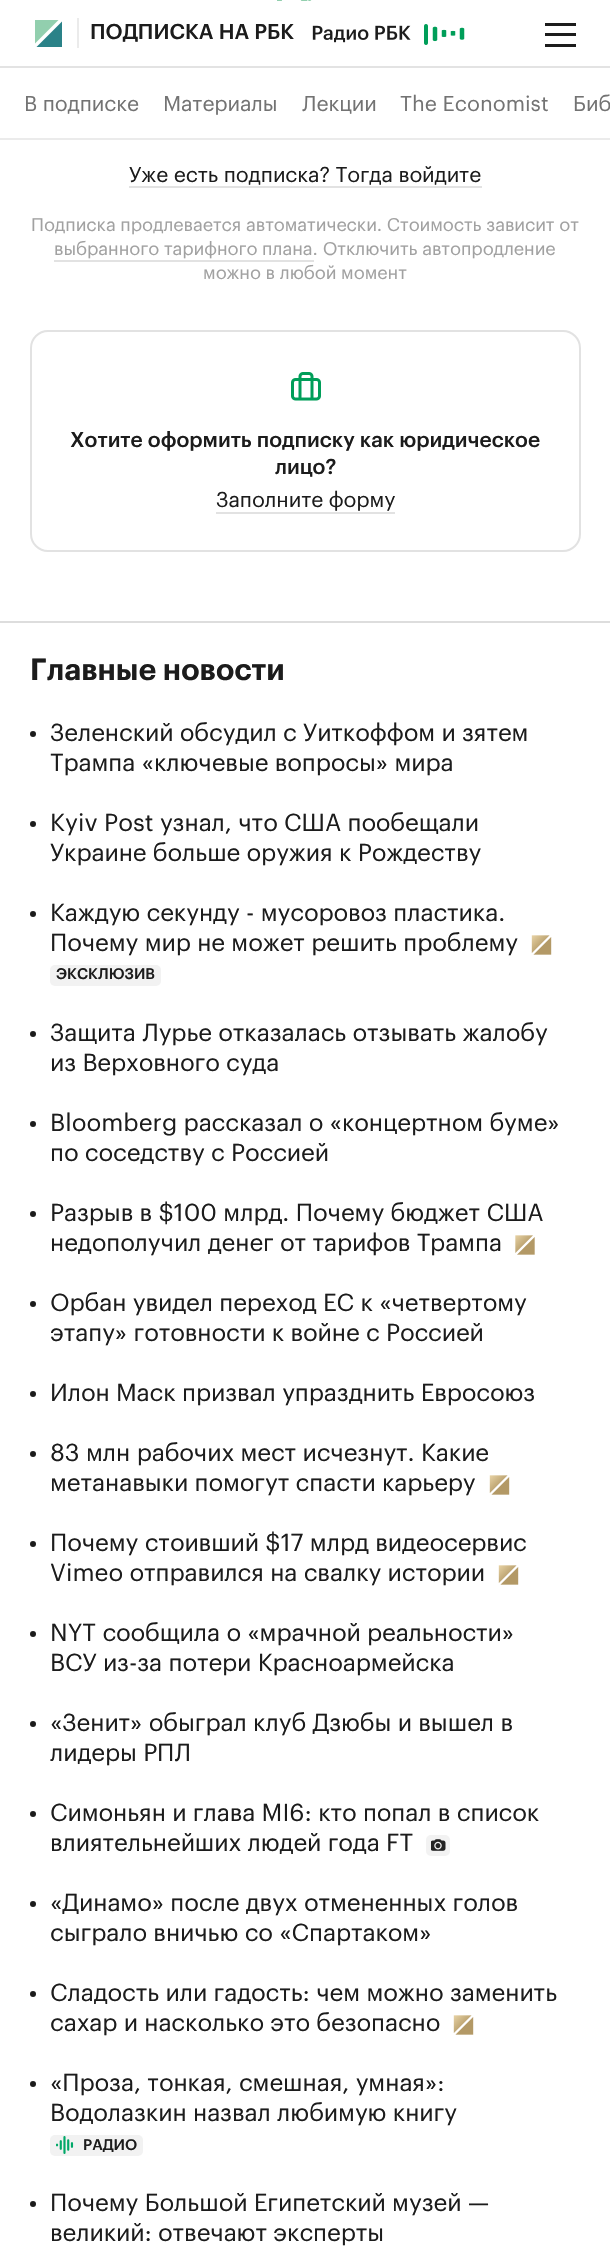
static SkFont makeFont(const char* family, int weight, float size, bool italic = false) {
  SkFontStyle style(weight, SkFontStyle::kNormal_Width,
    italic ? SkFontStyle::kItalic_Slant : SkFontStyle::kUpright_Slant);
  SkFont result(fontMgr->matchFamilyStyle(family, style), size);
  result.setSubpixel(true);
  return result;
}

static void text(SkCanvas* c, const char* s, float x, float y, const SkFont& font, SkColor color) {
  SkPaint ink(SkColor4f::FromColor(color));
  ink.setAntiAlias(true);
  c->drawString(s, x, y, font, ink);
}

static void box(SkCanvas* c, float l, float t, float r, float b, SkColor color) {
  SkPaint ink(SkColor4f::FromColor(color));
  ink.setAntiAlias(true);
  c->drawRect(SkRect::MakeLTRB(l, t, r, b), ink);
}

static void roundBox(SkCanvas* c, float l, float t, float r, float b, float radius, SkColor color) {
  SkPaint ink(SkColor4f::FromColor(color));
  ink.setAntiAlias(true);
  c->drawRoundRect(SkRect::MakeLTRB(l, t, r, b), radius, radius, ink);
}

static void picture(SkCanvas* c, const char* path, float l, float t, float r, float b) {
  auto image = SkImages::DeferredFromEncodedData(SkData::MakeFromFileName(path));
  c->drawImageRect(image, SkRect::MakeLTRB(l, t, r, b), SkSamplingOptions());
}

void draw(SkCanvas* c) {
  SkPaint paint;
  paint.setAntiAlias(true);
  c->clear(0xffffffff);
  c->save();
  c->clipRect(SkRect::MakeLTRB(269, 0, 344, 1));
  paint.setStyle(SkPaint::kStroke_Style);
  paint.setStrokeWidth(4.8f);
  paint.setStrokeCap(SkPaint::kRound_Cap);
  paint.setColor(0xff92cfae);
  c->drawPath(SkPathBuilder().moveTo(290.5f, -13.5f).cubicTo(281, -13.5f, 276.5f, -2, 281.5f, 5.5f).moveTo(302.5f, 2.5f).cubicTo(307, -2.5f, 313.5f, -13.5f, 321.5f, -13.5f).moveTo(330.5f, 5.5f).cubicTo(324, 15, 315.5f, 9.5f, 309.5f, 2.5f).detach(), paint);
  c->restore();
  box(c, 0, 66, 610, 68, 0xffe3e3e3);
  c->save();
  c->clipRect(SkRect::MakeLTRB(35, 20, 62, 47));
  paint.setStyle(SkPaint::kFill_Style);
  c->drawPath(SkPathBuilder(SkPathFillType::kEvenOdd).moveTo(33, 18).lineTo(33, 45.5f).lineTo(60.5f, 18).close().detach(), paint);
  paint.setColor(0xff2a8288);
  c->drawPath(SkPathBuilder(SkPathFillType::kEvenOdd).moveTo(35.5f, 48).lineTo(63, 48).lineTo(63, 20.5f).close().detach(), paint);
  c->restore();
  box(c, 77, 18, 79, 48, 0xffebebeb);
  SkFont face1 = makeFont("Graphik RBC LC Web", 500, 21);
  text(c, "ПОДПИСКА НА РБК", 90, 39, face1, 0xff1c1c1c);
  picture(c, "img_01.png", 312, 24, 465, 45);
  box(c, 545, 23, 576, 26, 0xff1c1c1c);
  box(c, 545, 33, 576, 36, 0xff1c1c1c);
  box(c, 545, 44, 576, 47, 0xff1c1c1c);
  box(c, 0, 138, 610, 140, 0xffebebeb);
  SkFont face2 = makeFont("Graphik RBC LC Web", 400, 21);
  text(c, "В подписке", 24, 111, face2, 0xff737373);
  text(c, "Материалы", 163, 111, face2, 0xff737373);
  text(c, "Лекции", 302, 111, face2, 0xff737373);
  text(c, "The Economist", 400, 111, face2, 0xff737373);
  text(c, "Биб", 573, 111, face2, 0xff737373);
  text(c, "Уже есть подписка? Тогда войдите", 129, 182, face2, 0xff1c1c1c);
  box(c, 129, 186, 482, 188, 0xffe2e2e2);
  SkFont face3 = makeFont("Graphik RBC LC Web", 400, 18);
  text(c, "Подписка продлевается автоматически. Стоимость зависит от", 31, 231, face3, 0xffa1a1a1);
  text(c, "выбранного тарифного плана. Отключить автопродление", 54, 255, face3, 0xffa1a1a1);
  box(c, 54, 260, 314, 262, 0xffe2e2e2);
  text(c, "можно в любой момент", 203, 279, face3, 0xffa1a1a1);
  paint.setStyle(SkPaint::kStroke_Style);
  paint.setStrokeWidth(2);
  paint.setStrokeCap(SkPaint::kButt_Cap);
  paint.setColor(0xffe2e2e2);
  c->drawRoundRect(SkRect::MakeLTRB(31, 331, 580, 551), 17, 17, paint);
  picture(c, "img_02.png", 291, 372, 321, 401);
  text(c, "Хотите оформить подписку как юридическое", 70, 447, face1, 0xff1c1c1c);
  text(c, "лицо?", 275, 474, face1, 0xff1c1c1c);
  text(c, "Заполните форму", 216, 507, face2, 0xff1c1c1c);
  box(c, 216, 512, 395, 514, 0xffe2e2e2);
  box(c, 0, 621, 610, 623, 0xffdddddd);
  SkFont face4 = makeFont("Graphik RBC LC Web", 600, 30);
  text(c, "Главные новости", 30, 680, face4, 0xff1c1c1c);
  paint.setStyle(SkPaint::kFill_Style);
  paint.setColor(0xff1c1c1c);
  c->drawCircle(33, 734, 3, paint);
  SkFont face5 = makeFont("Graphik RBC LC Web", 400, 24);
  text(c, "Зеленский обсудил с Уиткоффом и зятем", 50, 741, face5, 0xff1c1c1c);
  text(c, "Трампа «ключевые вопросы» мира", 50, 771, face5, 0xff1c1c1c);
  c->drawCircle(33, 824, 3, paint);
  text(c, "Kyiv Post узнал, что США пообещали", 50, 831, face5, 0xff1c1c1c);
  text(c, "Украине больше оружия к Рождеству", 50, 861, face5, 0xff1c1c1c);
  c->drawCircle(33, 914, 3, paint);
  text(c, "Каждую секунду - мусоровоз пластика.", 50, 921, face5, 0xff1c1c1c);
  text(c, "Почему мир не может решить проблему", 50, 951, face5, 0xff1c1c1c);
  picture(c, "img_03.png", 531, 935, 552, 955);
  roundBox(c, 50, 965, 161, 986, 5, 0xfff2f2f2);
  SkFont face6 = makeFont("Graphik RBC LC Web", 500, 15);
  text(c, "ЭКСКЛЮЗИВ", 56, 979, face6, 0xff1c1c1c);
  c->drawCircle(33, 1034, 3, paint);
  text(c, "Защита Лурье отказалась отзывать жалобу", 50, 1041, face5, 0xff1c1c1c);
  text(c, "из Верховного суда", 50, 1071, face5, 0xff1c1c1c);
  c->drawCircle(33, 1124, 3, paint);
  text(c, "Bloomberg рассказал о «концертном буме»", 50, 1131, face5, 0xff1c1c1c);
  text(c, "по соседству с Россией", 50, 1161, face5, 0xff1c1c1c);
  c->drawCircle(33, 1214, 3, paint);
  text(c, "Разрыв в $100 млрд. Почему бюджет США", 50, 1221, face5, 0xff1c1c1c);
  text(c, "недополучил денег от тарифов Трампа", 50, 1251, face5, 0xff1c1c1c);
  picture(c, "img_04.png", 515, 1235, 535, 1255);
  c->drawCircle(33, 1304, 3, paint);
  text(c, "Орбан увидел переход ЕС к «четвертому", 50, 1311, face5, 0xff1c1c1c);
  text(c, "этапу» готовности к войне с Россией", 50, 1341, face5, 0xff1c1c1c);
  c->drawCircle(33, 1394, 3, paint);
  text(c, "Илон Маск призвал упразднить Евросоюз", 50, 1401, face5, 0xff1c1c1c);
  c->drawCircle(33, 1454, 3, paint);
  text(c, "83 млн рабочих мест исчезнут. Какие", 50, 1461, face5, 0xff1c1c1c);
  text(c, "метанавыки помогут спасти карьеру", 50, 1491, face5, 0xff1c1c1c);
  picture(c, "img_03.png", 489, 1475, 510, 1495);
  c->drawCircle(33, 1544, 3, paint);
  text(c, "Почему стоивший $17 млрд видеосервис", 50, 1551, face5, 0xff1c1c1c);
  text(c, "Vimeo отправился на свалку истории", 50, 1581, face5, 0xff1c1c1c);
  picture(c, "img_03.png", 498, 1565, 519, 1585);
  c->drawCircle(33, 1634, 3, paint);
  text(c, "NYT сообщила о «мрачной реальности»", 50, 1641, face5, 0xff1c1c1c);
  text(c, "ВСУ из-за потери Красноармейска", 50, 1671, face5, 0xff1c1c1c);
  c->drawCircle(33, 1724, 3, paint);
  text(c, "«Зенит» обыграл клуб Дзюбы и вышел в", 50, 1731, face5, 0xff1c1c1c);
  text(c, "лидеры РПЛ", 50, 1761, face5, 0xff1c1c1c);
  c->drawCircle(33, 1814, 3, paint);
  text(c, "Симоньян и глава MI6: кто попал в список", 50, 1821, face5, 0xff1c1c1c);
  text(c, "влиятельнейших людей года FT", 50, 1851, face5, 0xff1c1c1c);
  roundBox(c, 426, 1835, 450, 1856, 5, 0xfff2f2f2);
  picture(c, "img_05.png", 431, 1839, 446, 1851);
  c->drawCircle(33, 1904, 3, paint);
  text(c, "«Динамо» после двух отмененных голов", 50, 1911, face5, 0xff1c1c1c);
  text(c, "сыграло вничью со «Спартаком»", 50, 1941, face5, 0xff1c1c1c);
  c->drawCircle(33, 1994, 3, paint);
  text(c, "Сладость или гадость: чем можно заменить", 50, 2001, face5, 0xff1c1c1c);
  text(c, "сахар и насколько это безопасно", 50, 2031, face5, 0xff1c1c1c);
  picture(c, "img_03.png", 453, 2015, 474, 2035);
  c->drawCircle(33, 2084, 3, paint);
  text(c, "«Проза, тонкая, смешная, умная»:", 50, 2091, face5, 0xff1c1c1c);
  text(c, "Водолазкин назвал любимую книгу", 50, 2121, face5, 0xff1c1c1c);
  roundBox(c, 50, 2135, 143, 2156, 5, 0xfff2f2f2);
  picture(c, "img_06.png", 56, 2136, 74, 2154);
  text(c, "РАДИО", 83, 2150, face6, 0xff1c1c1c);
  c->drawCircle(33, 2204, 3, paint);
  text(c, "Почему Большой Египетский музей —", 50, 2211, face5, 0xff1c1c1c);
  text(c, "великий: отвечают эксперты", 50, 2241, face5, 0xff1c1c1c);
}
